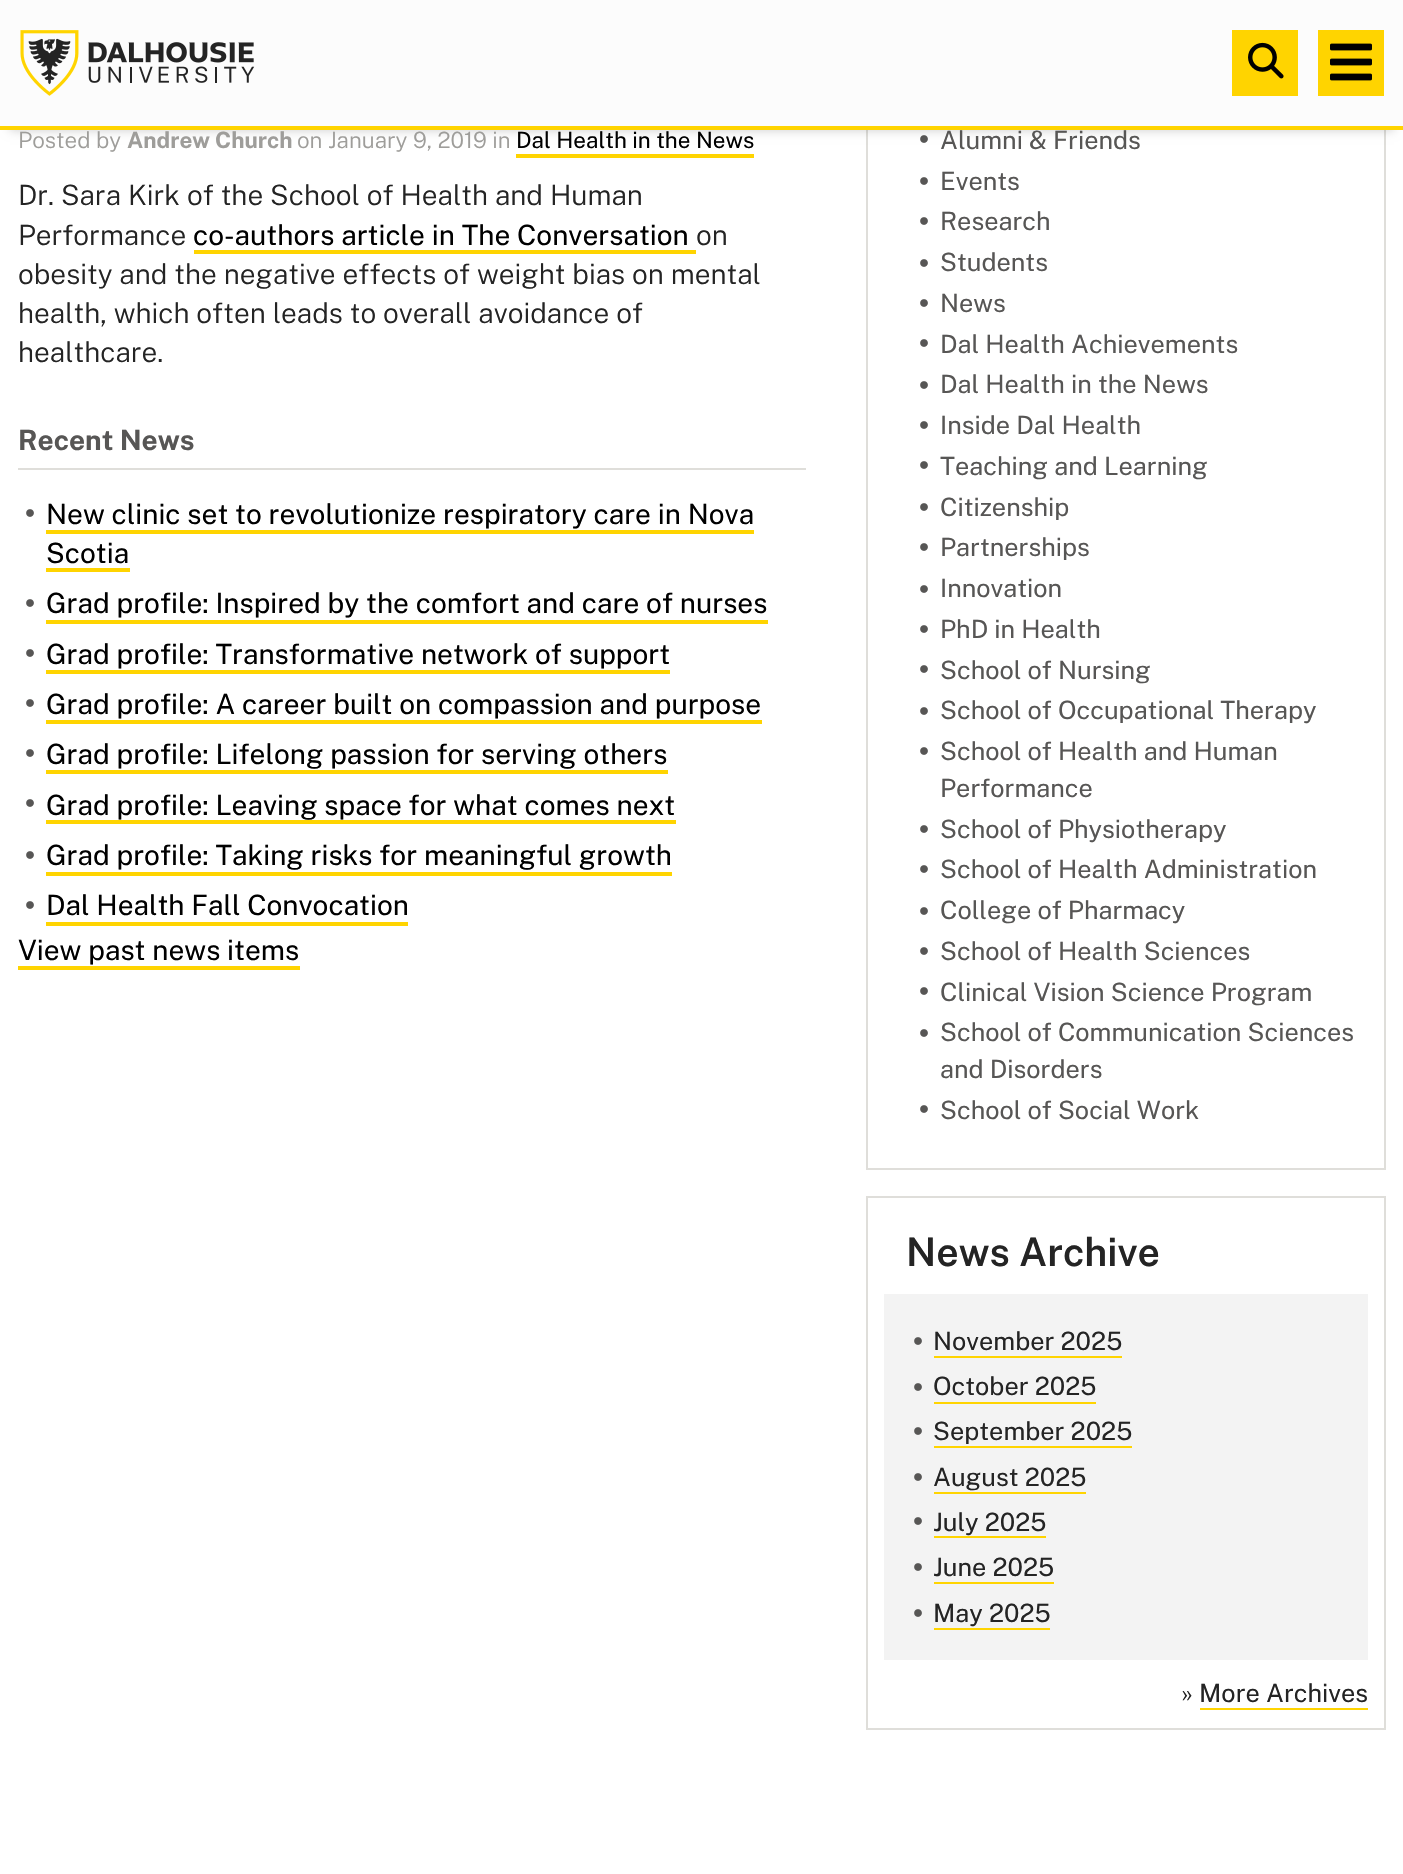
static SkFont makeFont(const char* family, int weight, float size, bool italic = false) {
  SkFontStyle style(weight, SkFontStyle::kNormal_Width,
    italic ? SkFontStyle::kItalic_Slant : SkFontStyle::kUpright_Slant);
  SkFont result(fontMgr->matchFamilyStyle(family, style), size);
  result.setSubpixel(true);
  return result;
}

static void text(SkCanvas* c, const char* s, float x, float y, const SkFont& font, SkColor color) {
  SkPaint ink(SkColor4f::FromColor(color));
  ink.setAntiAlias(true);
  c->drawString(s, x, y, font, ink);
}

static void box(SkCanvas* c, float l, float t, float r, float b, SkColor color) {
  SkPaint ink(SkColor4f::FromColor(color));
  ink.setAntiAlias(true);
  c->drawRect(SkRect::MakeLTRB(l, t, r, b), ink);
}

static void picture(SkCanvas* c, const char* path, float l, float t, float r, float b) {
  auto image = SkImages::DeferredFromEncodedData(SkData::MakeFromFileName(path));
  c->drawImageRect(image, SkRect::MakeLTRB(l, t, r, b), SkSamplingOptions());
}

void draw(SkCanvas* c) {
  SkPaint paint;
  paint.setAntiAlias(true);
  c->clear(0xffffffff);
  paint.setStyle(SkPaint::kStroke_Style);
  paint.setStrokeWidth(2);
  paint.setColor(0xffdfdeda);
  c->drawRect(SkRect::MakeLTRB(867, -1, 1385, 1169), paint);
  picture(c, "img_04.png", 920, 135, 928, 143);
  paint.setStyle(SkPaint::kFill_Style);
  paint.setColor(0x33000000);
  paint.setMaskFilter(SkMaskFilter::MakeBlur(kNormal_SkBlurStyle, 5));
  c->drawRect(SkRect::MakeLTRB(10, 20, 1394, 130), paint);
  paint.setMaskFilter(nullptr);
  box(c, 0, 0, 1403, 126, 0xfffcfcfc);
  box(c, 0, 126, 1403, 130, 0xffffd400);
  picture(c, "img_01.png", 20, 30, 255, 96);
  box(c, 1232, 30, 1298, 96, 0xffffd400);
  picture(c, "img_02.png", 1248, 42, 1284, 79);
  box(c, 1318, 30, 1384, 96, 0xffffd400);
  picture(c, "img_03.png", 1330, 43, 1372, 81);
  SkFont face1 = makeFont("Public Sans", 300, 22.4f);
  text(c, "Posted by", 18, 148, face1, 0xff9e9d9a);
  SkFont face2 = makeFont("Public Sans", 700, 22.4f);
  text(c, "Andrew Church", 127, 148, face2, 0xff9e9d9a);
  text(c, "on January 9, 2019 in", 297, 148, face1, 0xff9e9d9a);
  SkFont face3 = makeFont("Public Sans", 400, 22.4f);
  text(c, "Dal Health in the News", 516, 148, face3, 0xff000000);
  box(c, 516, 154, 754, 158, 0xffffd400);
  SkFont face4 = makeFont("Public Sans", 300, 28);
  text(c, "Dr. Sara Kirk of the School of Health and Human", 18, 205, face4, 0xff242424);
  text(c, "Performance", 18, 245, face4, 0xff242424);
  SkFont face5 = makeFont("Public Sans", 400, 28);
  text(c, "co-authors article in The Conversation", 193, 245, face5, 0xff000000);
  box(c, 194, 250, 696, 254, 0xffffd400);
  text(c, "on", 696, 245, face4, 0xff242424);
  text(c, "obesity and the negative effects of weight bias on mental", 18, 284, face4, 0xff242424);
  text(c, "health, which often leads to overall avoidance of", 18, 323, face4, 0xff242424);
  text(c, "healthcare.", 18, 362, face4, 0xff242424);
  box(c, 18, 468, 806, 470, 0xffdfdeda);
  SkFont face6 = makeFont("Public Sans", 700, 28);
  text(c, "Recent News", 18, 450, face6, 0xff575655);
  picture(c, "img_04.png", 26, 509, 34, 517);
  text(c, "New clinic set to revolutionize respiratory care in Nova", 46, 524, face5, 0xff000000);
  box(c, 46, 530, 754, 534, 0xffffd400);
  text(c, "Scotia", 46, 563, face5, 0xff000000);
  box(c, 46, 568, 130, 572, 0xffffd400);
  picture(c, "img_04.png", 26, 599, 34, 607);
  text(c, "Grad profile: Inspired by the comfort and care of nurses", 46, 613, face5, 0xff000000);
  box(c, 46, 620, 768, 624, 0xffffd400);
  picture(c, "img_04.png", 26, 649, 34, 657);
  text(c, "Grad profile: Transformative network of support", 46, 664, face5, 0xff000000);
  box(c, 46, 670, 670, 674, 0xffffd400);
  picture(c, "img_04.png", 26, 699, 34, 707);
  text(c, "Grad profile: A career built on compassion and purpose", 46, 714, face5, 0xff000000);
  box(c, 46, 720, 762, 724, 0xffffd400);
  picture(c, "img_04.png", 26, 749, 34, 757);
  text(c, "Grad profile: Lifelong passion for serving others", 46, 764, face5, 0xff000000);
  box(c, 46, 770, 668, 774, 0xffffd400);
  picture(c, "img_04.png", 26, 799, 34, 807);
  text(c, "Grad profile: Leaving space for what comes next", 46, 815, face5, 0xff000000);
  box(c, 46, 820, 676, 824, 0xffffd400);
  picture(c, "img_04.png", 26, 851, 34, 859);
  text(c, "Grad profile: Taking risks for meaningful growth", 46, 865, face5, 0xff000000);
  box(c, 46, 872, 672, 876, 0xffffd400);
  picture(c, "img_04.png", 26, 901, 34, 909);
  text(c, "Dal Health Fall Convocation", 46, 915, face5, 0xff000000);
  box(c, 46, 922, 408, 926, 0xffffd400);
  text(c, "View past news items", 18, 960, face5, 0xff000000);
  box(c, 18, 966, 300, 970, 0xffffd400);
  SkFont face7 = makeFont("Public Sans", 400, 25.25f);
  text(c, "Alumni & Friends", 940, 149, face7, 0xff575655);
  picture(c, "img_04.png", 920, 177, 928, 185);
  text(c, "Events", 940, 190, face7, 0xff575655);
  picture(c, "img_04.png", 920, 217, 928, 225);
  text(c, "Research", 940, 230, face7, 0xff575655);
  picture(c, "img_04.png", 920, 259, 928, 267);
  text(c, "Students", 940, 271, face7, 0xff575655);
  picture(c, "img_04.png", 920, 299, 928, 307);
  text(c, "News", 940, 312, face7, 0xff575655);
  picture(c, "img_04.png", 920, 339, 928, 347);
  text(c, "Dal Health Achievements", 940, 353, face7, 0xff575655);
  picture(c, "img_04.png", 920, 381, 928, 389);
  text(c, "Dal Health in the News", 940, 393, face7, 0xff575655);
  picture(c, "img_04.png", 920, 421, 928, 429);
  text(c, "Inside Dal Health", 940, 434, face7, 0xff575655);
  picture(c, "img_04.png", 920, 461, 928, 469);
  text(c, "Teaching and Learning", 940, 475, face7, 0xff575655);
  picture(c, "img_04.png", 920, 503, 928, 511);
  text(c, "Citizenship", 940, 516, face7, 0xff575655);
  picture(c, "img_04.png", 920, 543, 928, 551);
  text(c, "Partnerships", 940, 556, face7, 0xff575655);
  picture(c, "img_04.png", 920, 585, 928, 593);
  text(c, "Innovation", 940, 597, face7, 0xff575655);
  picture(c, "img_04.png", 920, 625, 928, 633);
  text(c, "PhD in Health", 940, 638, face7, 0xff575655);
  picture(c, "img_04.png", 920, 665, 928, 673);
  text(c, "School of Nursing", 940, 679, face7, 0xff575655);
  picture(c, "img_04.png", 920, 707, 928, 715);
  text(c, "School of Occupational Therapy", 940, 719, face7, 0xff575655);
  picture(c, "img_04.png", 920, 747, 928, 755);
  text(c, "School of Health and Human", 940, 760, face7, 0xff575655);
  text(c, "Performance", 940, 797, face7, 0xff575655);
  picture(c, "img_04.png", 920, 825, 928, 833);
  text(c, "School of Physiotherapy", 940, 838, face7, 0xff575655);
  picture(c, "img_04.png", 920, 865, 928, 873);
  text(c, "School of Health Administration", 940, 878, face7, 0xff575655);
  picture(c, "img_04.png", 920, 907, 928, 915);
  text(c, "College of Pharmacy", 940, 919, face7, 0xff575655);
  picture(c, "img_04.png", 920, 947, 928, 955);
  text(c, "School of Health Sciences", 940, 960, face7, 0xff575655);
  picture(c, "img_04.png", 920, 987, 928, 995);
  text(c, "Clinical Vision Science Program", 940, 1001, face7, 0xff575655);
  picture(c, "img_04.png", 920, 1029, 928, 1037);
  text(c, "School of Communication Sciences", 940, 1041, face7, 0xff575655);
  text(c, "and Disorders", 940, 1078, face7, 0xff575655);
  picture(c, "img_04.png", 920, 1105, 928, 1113);
  text(c, "School of Social Work", 940, 1119, face7, 0xff575655);
  paint.setStyle(SkPaint::kStroke_Style);
  paint.setColor(0xffdfdeda);
  c->drawRect(SkRect::MakeLTRB(867, 1197, 1385, 1729), paint);
  SkFont face8 = makeFont("Public Sans", 600, 39.25f);
  text(c, "News Archive", 906, 1266, face8, 0xff242424);
  box(c, 884, 1294, 1368, 1660, 0xfff3f3f3);
  picture(c, "img_05.png", 914, 1337, 922, 1345);
  text(c, "November 2025", 933, 1350, face7, 0xff242424);
  box(c, 934, 1356, 1122, 1358, 0xffffd400);
  picture(c, "img_05.png", 914, 1383, 922, 1391);
  text(c, "October 2025", 933, 1395, face7, 0xff242424);
  box(c, 934, 1402, 1096, 1404, 0xffffd400);
  picture(c, "img_05.png", 914, 1427, 922, 1435);
  text(c, "September 2025", 933, 1440, face7, 0xff242424);
  box(c, 934, 1446, 1132, 1448, 0xffffd400);
  picture(c, "img_05.png", 914, 1473, 922, 1481);
  text(c, "August 2025", 933, 1486, face7, 0xff242424);
  box(c, 934, 1492, 1086, 1494, 0xffffd400);
  picture(c, "img_05.png", 914, 1517, 922, 1525);
  text(c, "July 2025", 933, 1531, face7, 0xff242424);
  box(c, 934, 1536, 1046, 1538, 0xffffd400);
  picture(c, "img_05.png", 914, 1563, 922, 1571);
  text(c, "June 2025", 933, 1576, face7, 0xff242424);
  box(c, 934, 1582, 1054, 1584, 0xffffd400);
  picture(c, "img_05.png", 914, 1609, 922, 1617);
  text(c, "May 2025", 933, 1622, face7, 0xff242424);
  box(c, 934, 1628, 1050, 1630, 0xffffd400);
  SkFont face9 = makeFont("Public Sans", 300, 25.25f);
  text(c, "»", 1181, 1702, face9, 0xff242424);
  text(c, "More Archives", 1199, 1702, face7, 0xff242424);
  box(c, 1200, 1708, 1368, 1710, 0xffffd400);
}
